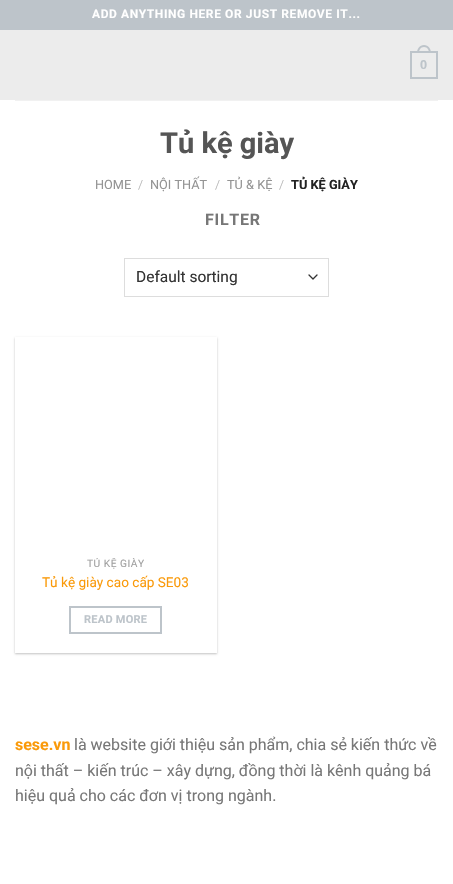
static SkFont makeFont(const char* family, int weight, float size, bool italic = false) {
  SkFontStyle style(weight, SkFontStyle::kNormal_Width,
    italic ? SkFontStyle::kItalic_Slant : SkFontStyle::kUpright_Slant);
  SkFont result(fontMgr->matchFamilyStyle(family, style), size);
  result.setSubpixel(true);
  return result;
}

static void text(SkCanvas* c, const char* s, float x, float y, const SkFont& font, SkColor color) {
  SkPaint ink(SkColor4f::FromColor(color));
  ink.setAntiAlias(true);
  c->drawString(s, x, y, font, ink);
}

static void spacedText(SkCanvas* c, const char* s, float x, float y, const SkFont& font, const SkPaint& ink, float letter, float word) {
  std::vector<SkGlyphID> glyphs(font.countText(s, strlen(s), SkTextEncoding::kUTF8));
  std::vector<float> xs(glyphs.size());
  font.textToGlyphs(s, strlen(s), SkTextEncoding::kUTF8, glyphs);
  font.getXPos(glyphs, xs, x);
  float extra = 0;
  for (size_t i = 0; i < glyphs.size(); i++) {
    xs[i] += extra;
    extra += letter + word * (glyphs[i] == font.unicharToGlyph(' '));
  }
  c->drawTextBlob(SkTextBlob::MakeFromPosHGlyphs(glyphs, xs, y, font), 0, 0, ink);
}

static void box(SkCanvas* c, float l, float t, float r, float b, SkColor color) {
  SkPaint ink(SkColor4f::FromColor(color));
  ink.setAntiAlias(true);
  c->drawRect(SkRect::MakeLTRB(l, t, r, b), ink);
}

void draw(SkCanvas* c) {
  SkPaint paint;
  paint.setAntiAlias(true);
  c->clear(0xffffffff);
  box(c, 0, 0, 453, 30, 0xffbdc4ca);
  SkFont face1 = makeFont("Roboto", 700, 12);
  paint.setColor(0xffffffff);
  spacedText(c, "ADD ANYTHING HERE OR JUST REMOVE IT...", 92, 18, face1, paint, 0.6f, 0);
  box(c, 0, 30, 453, 100, 0xffececec);
  paint.setStyle(SkPaint::kStroke_Style);
  paint.setStrokeWidth(2);
  paint.setColor(0xffbdc4ca);
  c->drawRect(SkRect::MakeLTRB(411, 52, 437, 78), paint);
  paint.setStyle(SkPaint::kFill_Style);
  c->drawPath(SkPathBuilder(SkPathFillType::kEvenOdd).moveTo(424, 45).cubicTo(428.5f, 45, 431, 49, 431, 53).lineTo(417, 53).cubicTo(417, 49, 419.5f, 45, 424, 45).close().moveTo(424, 47).cubicTo(427.5f, 47, 429, 50, 429, 53).lineTo(419, 53).cubicTo(419, 50, 420.5f, 47, 424, 47).close().detach(), paint);
  SkFont face2 = makeFont("Liberation Sans", 700, 12.75f);
  text(c, "0", 420, 69, face2, 0xffbdc4ca);
  box(c, 15, 100, 438, 101, 0xfff1f1f1);
  SkFont face3 = makeFont("Roboto", 700, 29);
  text(c, "Tủ kệ giày", 160, 153, face3, 0xff555555);
  SkFont face4 = makeFont("Roboto", 400, 12.75f);
  text(c, "HOME", 95, 189, face4, 0xff949494);
  SkFont face5 = makeFont("Roboto", 300, 12.75f);
  text(c, "/", 138, 189, face5, 0xffb2b2b2);
  text(c, "NỘI THẤT", 150, 189, face4, 0xff949494);
  text(c, "/", 215, 189, face5, 0xffb2b2b2);
  text(c, "TỦ & KỆ", 227, 189, face4, 0xff949494);
  text(c, "/", 279, 189, face5, 0xffb2b2b2);
  SkFont face6 = makeFont("Roboto", 700, 12.75f);
  text(c, "TỦ KỆ GIÀY", 291, 189, face6, 0xff222222);
  SkFont face7 = makeFont("Roboto", 700, 16);
  paint.setColor(0xff777777);
  spacedText(c, "FILTER", 205, 225, face7, paint, 0.75f, 0);
  paint.setStyle(SkPaint::kStroke_Style);
  paint.setStrokeWidth(1.3f);
  paint.setStrokeCap(SkPaint::kRound_Cap);
  paint.setStrokeJoin(SkPaint::kRound_Join);
  paint.setColor(0xff333333);
  c->drawPath(SkPathBuilder().moveTo(309, 275).lineTo(313, 279).lineTo(317, 275).detach(), paint);
  paint.setStrokeWidth(1);
  paint.setStrokeCap(SkPaint::kButt_Cap);
  paint.setStrokeJoin(SkPaint::kMiter_Join);
  paint.setColor(0xffdddddd);
  c->drawRect(SkRect::MakeLTRB(124.5f, 258.5f, 328.5f, 296.5f), paint);
  SkFont face8 = makeFont("Roboto", 400, 15.5f);
  text(c, "Default sorting", 136, 282, face8, 0xff333333);
  c->save();
  c->clipPath(SkPathBuilder(SkPathFillType::kEvenOdd).moveTo(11, 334).lineTo(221, 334).lineTo(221, 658).lineTo(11, 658).close().moveTo(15, 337).lineTo(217, 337).lineTo(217, 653).lineTo(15, 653).close().detach(), true);
  paint.setStyle(SkPaint::kFill_Style);
  paint.setColor(0x3d000000);
  paint.setMaskFilter(SkMaskFilter::MakeBlur(kNormal_SkBlurStyle, 1));
  c->drawRect(SkRect::MakeLTRB(15, 338, 217, 654), paint);
  paint.setMaskFilter(nullptr);
  c->restore();
  c->save();
  c->clipRect(SkRect::MakeLTRB(25, 558, 207, 570));
  SkFont face9 = makeFont("Roboto", 400, 10.25f);
  paint.setColor(0xffa0a0a0);
  spacedText(c, "TỦ KỆ GIÀY", 87, 567, face9, paint, 0.5f, 0);
  c->restore();
  SkFont face10 = makeFont("Roboto", 400, 13.6f);
  text(c, "Tủ kệ giày cao cấp SE03", 42, 587, face10, 0xfffa9a0a);
  paint.setStyle(SkPaint::kStroke_Style);
  paint.setStrokeWidth(2);
  paint.setColor(0xffbdc4ca);
  c->drawRect(SkRect::MakeLTRB(70, 607, 161, 633), paint);
  SkFont face11 = makeFont("Roboto", 700, 11);
  paint.setStyle(SkPaint::kFill_Style);
  spacedText(c, "READ MORE", 84, 623, face11, paint, 0.25f, 0);
  text(c, "sese.vn", 15, 750, face7, 0xfffa9a0a);
  SkFont face12 = makeFont("Roboto", 400, 16);
  text(c, "là website giới thiệu sản phẩm, chia sẻ kiến thức về", 74, 750, face12, 0xff777777);
  text(c, "nội thất – kiến trúc – xây dựng, đồng thời là kênh quảng bá", 15, 776, face12, 0xff777777);
  text(c, "hiệu quả cho các đơn vị trong ngành.", 15, 801, face12, 0xff777777);
}
